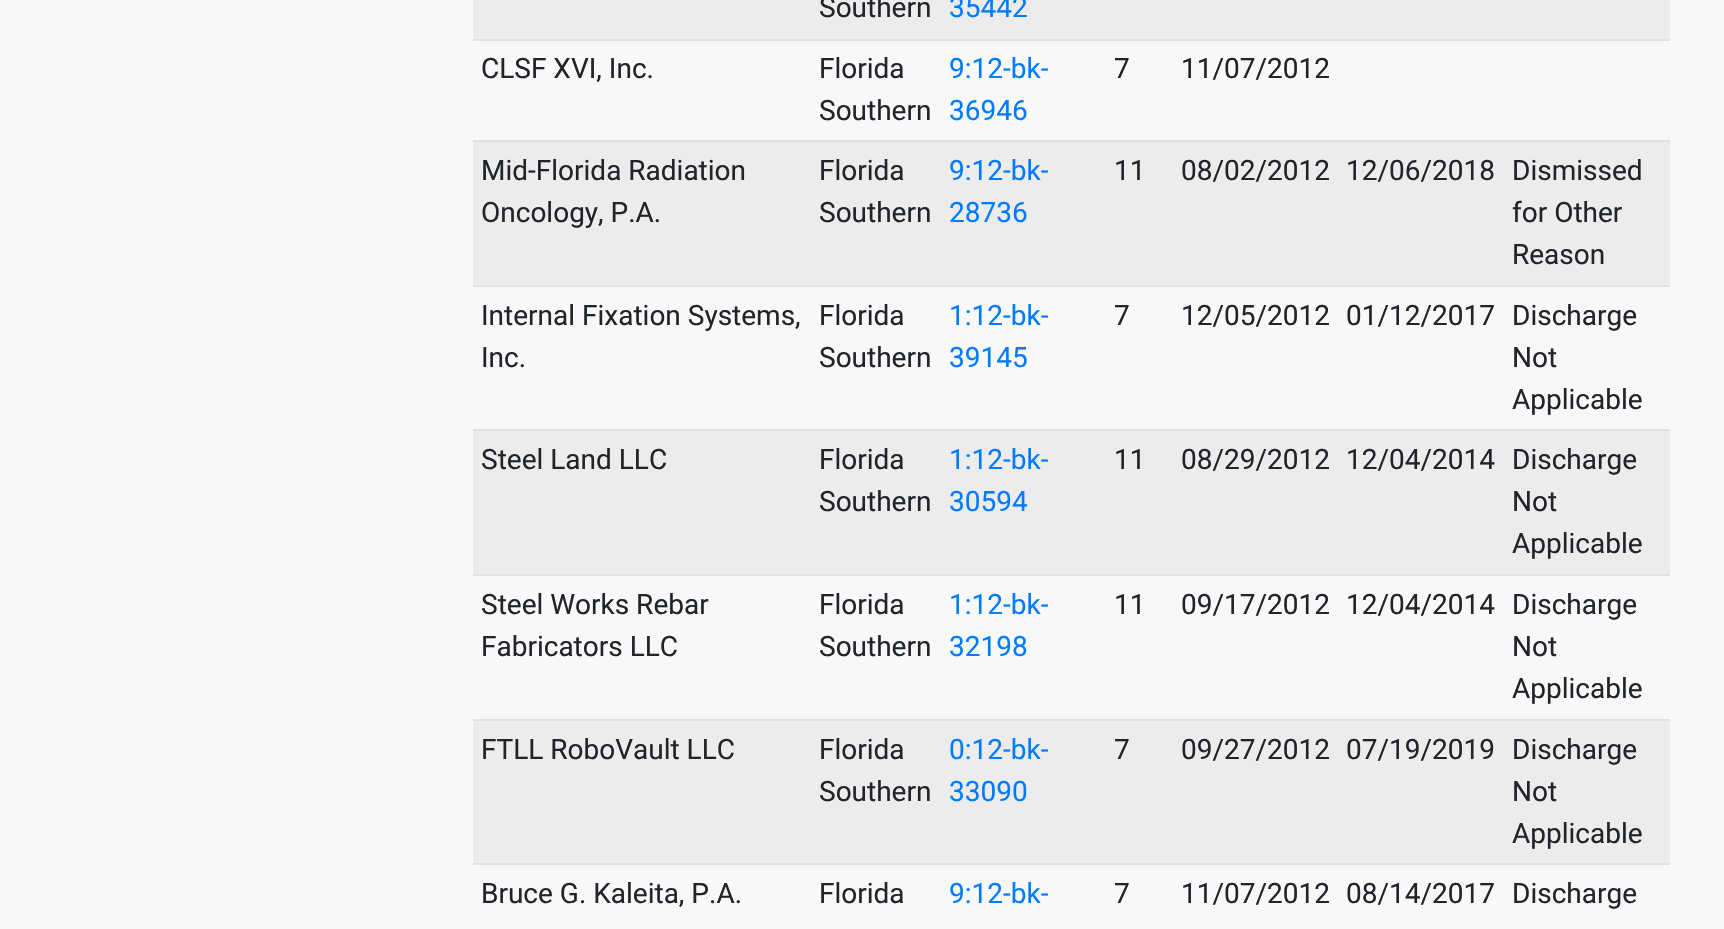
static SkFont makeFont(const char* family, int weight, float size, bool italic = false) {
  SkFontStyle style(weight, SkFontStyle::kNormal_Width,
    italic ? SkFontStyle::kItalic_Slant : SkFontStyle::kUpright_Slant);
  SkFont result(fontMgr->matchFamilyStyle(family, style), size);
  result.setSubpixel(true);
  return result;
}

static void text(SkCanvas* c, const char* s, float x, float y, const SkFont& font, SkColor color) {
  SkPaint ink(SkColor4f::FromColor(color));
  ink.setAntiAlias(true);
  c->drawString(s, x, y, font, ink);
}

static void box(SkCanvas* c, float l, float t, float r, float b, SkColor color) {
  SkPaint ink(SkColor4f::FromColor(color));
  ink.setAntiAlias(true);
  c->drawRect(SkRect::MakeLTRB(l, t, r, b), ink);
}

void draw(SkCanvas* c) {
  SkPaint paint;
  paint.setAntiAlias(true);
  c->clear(0xfff8f8f8);
  box(c, 473, 0, 1670, 39, 0xffececec);
  SkFont face1 = makeFont("Roboto", 400, 28);
  text(c, "Southern", 819, 17, face1, 0xff212529);
  text(c, "35442", 949, 17, face1, 0xff007bff);
  box(c, 473, 39, 1670, 41, 0xffdee2e6);
  text(c, "CLSF XVI, Inc.", 481, 78, face1, 0xff212529);
  text(c, "Florida", 819, 78, face1, 0xff212529);
  text(c, "Southern", 819, 120, face1, 0xff212529);
  text(c, "9:12-bk-", 949, 78, face1, 0xff007bff);
  text(c, "36946", 949, 120, face1, 0xff007bff);
  text(c, "7", 1114, 78, face1, 0xff212529);
  text(c, "11/07/2012", 1181, 78, face1, 0xff212529);
  box(c, 473, 142, 1670, 285, 0xffececec);
  text(c, "Mid-Florida Radiation", 481, 180, face1, 0xff212529);
  text(c, "Oncology, P.A.", 481, 222, face1, 0xff212529);
  text(c, "Florida", 819, 180, face1, 0xff212529);
  text(c, "Southern", 819, 222, face1, 0xff212529);
  text(c, "9:12-bk-", 949, 180, face1, 0xff007bff);
  text(c, "28736", 949, 222, face1, 0xff007bff);
  text(c, "11", 1114, 180, face1, 0xff212529);
  text(c, "08/02/2012", 1181, 180, face1, 0xff212529);
  text(c, "12/06/2018", 1346, 180, face1, 0xff212529);
  box(c, 473, 140, 1670, 142, 0xffdee2e6);
  text(c, "Dismissed", 1512, 180, face1, 0xff212529);
  text(c, "for Other", 1512, 222, face1, 0xff212529);
  text(c, "Reason", 1512, 264, face1, 0xff212529);
  text(c, "Internal Fixation Systems,", 481, 325, face1, 0xff212529);
  text(c, "Inc.", 481, 367, face1, 0xff212529);
  text(c, "Florida", 819, 325, face1, 0xff212529);
  text(c, "Southern", 819, 367, face1, 0xff212529);
  text(c, "1:12-bk-", 949, 325, face1, 0xff007bff);
  text(c, "39145", 949, 367, face1, 0xff007bff);
  text(c, "7", 1114, 325, face1, 0xff212529);
  text(c, "12/05/2012", 1181, 325, face1, 0xff212529);
  text(c, "01/12/2017", 1346, 325, face1, 0xff212529);
  box(c, 473, 285, 1670, 287, 0xffdee2e6);
  text(c, "Discharge", 1512, 325, face1, 0xff212529);
  text(c, "Not", 1512, 367, face1, 0xff212529);
  text(c, "Applicable", 1512, 409, face1, 0xff212529);
  box(c, 473, 431, 1670, 574, 0xffececec);
  text(c, "Steel Land LLC", 481, 469, face1, 0xff212529);
  text(c, "Florida", 819, 469, face1, 0xff212529);
  text(c, "Southern", 819, 511, face1, 0xff212529);
  text(c, "1:12-bk-", 949, 469, face1, 0xff007bff);
  text(c, "30594", 949, 511, face1, 0xff007bff);
  text(c, "11", 1114, 469, face1, 0xff212529);
  text(c, "08/29/2012", 1181, 469, face1, 0xff212529);
  text(c, "12/04/2014", 1346, 469, face1, 0xff212529);
  box(c, 473, 429, 1670, 431, 0xffdee2e6);
  text(c, "Discharge", 1512, 469, face1, 0xff212529);
  text(c, "Not", 1512, 511, face1, 0xff212529);
  text(c, "Applicable", 1512, 553, face1, 0xff212529);
  text(c, "Steel Works Rebar", 481, 614, face1, 0xff212529);
  text(c, "Fabricators LLC", 481, 656, face1, 0xff212529);
  text(c, "Florida", 819, 614, face1, 0xff212529);
  text(c, "Southern", 819, 656, face1, 0xff212529);
  text(c, "1:12-bk-", 949, 614, face1, 0xff007bff);
  text(c, "32198", 949, 656, face1, 0xff007bff);
  text(c, "11", 1114, 614, face1, 0xff212529);
  text(c, "09/17/2012", 1181, 614, face1, 0xff212529);
  text(c, "12/04/2014", 1346, 614, face1, 0xff212529);
  box(c, 473, 574, 1670, 576, 0xffdee2e6);
  text(c, "Discharge", 1512, 614, face1, 0xff212529);
  text(c, "Not", 1512, 656, face1, 0xff212529);
  text(c, "Applicable", 1512, 698, face1, 0xff212529);
  box(c, 473, 721, 1670, 863, 0xffececec);
  text(c, "FTLL RoboVault LLC", 481, 759, face1, 0xff212529);
  text(c, "Florida", 819, 759, face1, 0xff212529);
  text(c, "Southern", 819, 801, face1, 0xff212529);
  text(c, "0:12-bk-", 949, 759, face1, 0xff007bff);
  text(c, "33090", 949, 801, face1, 0xff007bff);
  text(c, "7", 1114, 759, face1, 0xff212529);
  text(c, "09/27/2012", 1181, 759, face1, 0xff212529);
  text(c, "07/19/2019", 1346, 759, face1, 0xff212529);
  box(c, 473, 719, 1670, 721, 0xffdee2e6);
  text(c, "Discharge", 1512, 759, face1, 0xff212529);
  text(c, "Not", 1512, 801, face1, 0xff212529);
  text(c, "Applicable", 1512, 843, face1, 0xff212529);
  text(c, "Bruce G. Kaleita, P.A.", 481, 903, face1, 0xff212529);
  text(c, "Florida", 819, 903, face1, 0xff212529);
  text(c, "9:12-bk-", 949, 903, face1, 0xff007bff);
  text(c, "7", 1114, 903, face1, 0xff212529);
  text(c, "11/07/2012", 1181, 903, face1, 0xff212529);
  text(c, "08/14/2017", 1346, 903, face1, 0xff212529);
  box(c, 473, 863, 1670, 865, 0xffdee2e6);
  text(c, "Discharge", 1512, 903, face1, 0xff212529);
}
